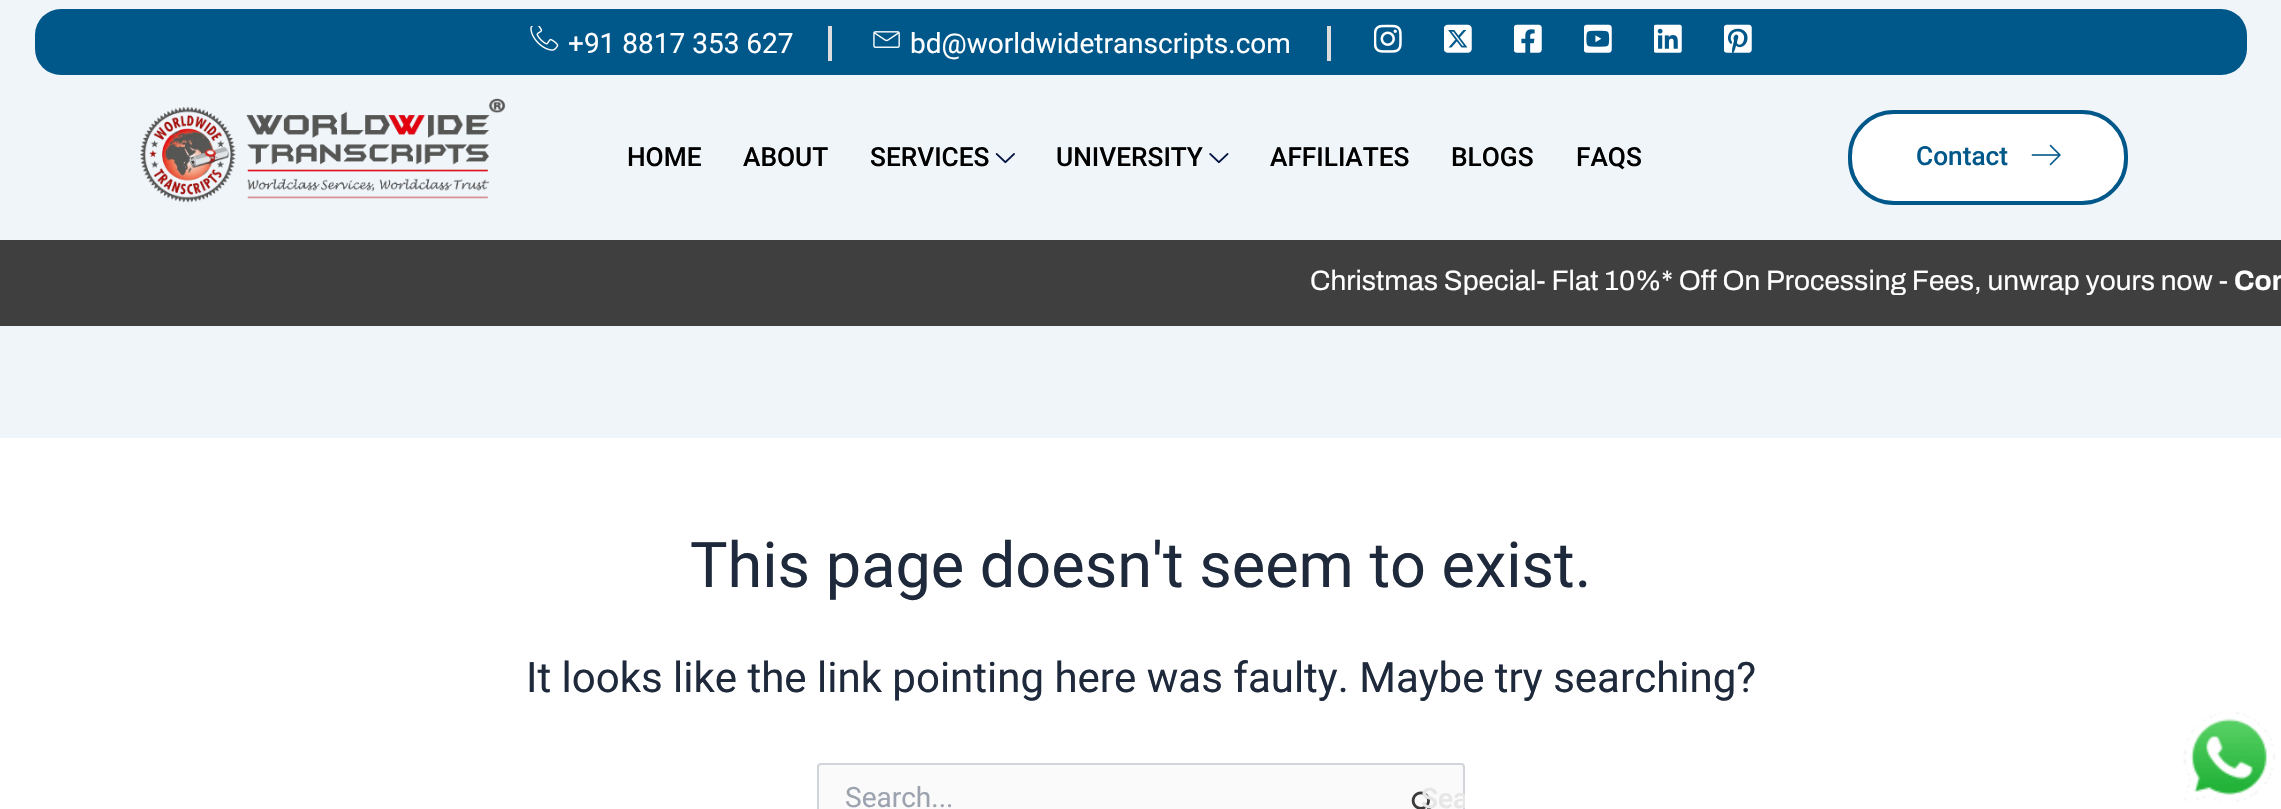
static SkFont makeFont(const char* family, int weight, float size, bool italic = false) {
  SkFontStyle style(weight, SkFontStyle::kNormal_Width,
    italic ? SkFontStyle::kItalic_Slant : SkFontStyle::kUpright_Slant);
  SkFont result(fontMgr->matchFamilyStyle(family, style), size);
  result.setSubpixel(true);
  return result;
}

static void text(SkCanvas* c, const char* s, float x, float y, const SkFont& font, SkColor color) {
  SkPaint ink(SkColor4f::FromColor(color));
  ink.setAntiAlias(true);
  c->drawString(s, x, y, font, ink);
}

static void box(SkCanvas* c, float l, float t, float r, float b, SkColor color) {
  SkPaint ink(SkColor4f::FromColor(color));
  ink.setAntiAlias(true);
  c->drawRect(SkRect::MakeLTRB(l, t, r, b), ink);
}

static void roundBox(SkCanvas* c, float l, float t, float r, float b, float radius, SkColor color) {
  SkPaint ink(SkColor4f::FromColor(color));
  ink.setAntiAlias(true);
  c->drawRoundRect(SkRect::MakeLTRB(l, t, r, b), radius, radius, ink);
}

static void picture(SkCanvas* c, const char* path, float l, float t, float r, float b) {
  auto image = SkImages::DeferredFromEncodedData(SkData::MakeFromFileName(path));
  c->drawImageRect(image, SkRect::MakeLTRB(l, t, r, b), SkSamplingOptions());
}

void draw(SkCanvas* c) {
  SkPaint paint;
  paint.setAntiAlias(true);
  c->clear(0xfff0f5fa);
  roundBox(c, 35, 9, 2247, 75, 26, 0xff005789);
  picture(c, "img_01.png", 530, 26, 559, 51);
  SkFont face1 = makeFont("Roboto", 400, 28);
  text(c, "+91 8817 353 627", 568, 53, face1, 0xffffffff);
  box(c, 828, 26, 832, 61, 0xffdddddd);
  picture(c, "img_02.png", 873, 31, 900, 48);
  text(c, "bd@worldwidetranscripts.com", 910, 53, face1, 0xffffffff);
  box(c, 1327, 26, 1331, 61, 0xffdddddd);
  picture(c, "img_03.png", 1374, 24, 1402, 53);
  picture(c, "img_04.png", 1444, 24, 1472, 53);
  picture(c, "img_05.png", 1514, 24, 1542, 53);
  picture(c, "img_06.png", 1584, 24, 1612, 53);
  picture(c, "img_07.png", 1654, 24, 1682, 53);
  picture(c, "img_08.png", 1724, 24, 1752, 53);
  picture(c, "img_09.png", 140, 98, 506, 203);
  SkFont face2 = makeFont("Roboto", 500, 26.25f);
  text(c, "HOME", 627, 166, face2, 0xff000000);
  text(c, "ABOUT", 743, 166, face2, 0xff000000);
  text(c, "SERVICES", 870, 166, face2, 0xff000000);
  picture(c, "img_10.png", 995, 153, 1015, 164);
  text(c, "UNIVERSITY", 1056, 166, face2, 0xff000000);
  picture(c, "img_11.png", 1209, 153, 1229, 164);
  text(c, "AFFILIATES", 1270, 166, face2, 0xff000000);
  text(c, "BLOGS", 1451, 166, face2, 0xff000000);
  text(c, "FAQS", 1576, 166, face2, 0xff000000);
  paint.setColor(0xffffffff);
  c->drawRoundRect(SkRect::MakeLTRB(1850, 112, 2126, 203), 44, 44, paint);
  paint.setStyle(SkPaint::kStroke_Style);
  paint.setStrokeWidth(4);
  paint.setColor(0xff005789);
  c->drawRoundRect(SkRect::MakeLTRB(1850, 112, 2126, 203), 44, 44, paint);
  text(c, "Contact", 1916, 165, face2, 0xff005789);
  picture(c, "img_12.png", 2031, 144, 2061, 166);
  box(c, 0, 240, 2281, 326, 0xff3f3f3f);
  SkFont face3 = makeFont("Archivo", 400, 28);
  text(c, "Christmas Special- Flat 10%* Off On Processing Fees, unwrap yours now -", 1310, 290, face3, 0xffffffff);
  SkFont face4 = makeFont("Archivo", 700, 28);
  text(c, "Con", 2234, 290, face4, 0xffffffff);
  box(c, 0, 438, 2281, 809, 0xffffffff);
  SkFont face5 = makeFont("Roboto", 400, 63);
  text(c, "This page doesn't seem to exist.", 690, 587, face5, 0xff1e293b);
  SkFont face6 = makeFont("Roboto", 400, 42);
  text(c, "It looks like the link pointing here was faulty. Maybe try searching?", 526, 692, face6, 0xff1e293b);
  paint.setStyle(SkPaint::kFill_Style);
  paint.setColor(0xfffafafa);
  c->drawRoundRect(SkRect::MakeLTRB(818, 764, 1464, 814), 3, 3, paint);
  paint.setStyle(SkPaint::kStroke_Style);
  paint.setStrokeWidth(2);
  paint.setColor(0xffd1d5db);
  c->drawRoundRect(SkRect::MakeLTRB(818, 764, 1464, 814), 3, 3, paint);
  text(c, "Search...", 845, 807, face1, 0xff9ca3af);
  picture(c, "img_13.png", 1411, 791, 1432, 809);
  c->save();
  c->clipPath(SkPathBuilder().moveTo(1390, 763).lineTo(1461, 763).cubicTo(1463, 763, 1465, 765, 1465, 767).lineTo(1465, 833).cubicTo(1465, 835, 1463, 837, 1461, 837).lineTo(1390, 837).cubicTo(1388, 837, 1386, 835, 1386, 833).lineTo(1386, 767).cubicTo(1386, 765, 1388, 763, 1390, 763).close().detach(), true);
  SkFont face7 = makeFont("Roboto", 500, 28);
  text(c, "Sea", 1421, 808, face7, 0xffe6e6e6);
  c->restore();
  picture(c, "img_14.png", 2183, 712, 2275, 802);
}
